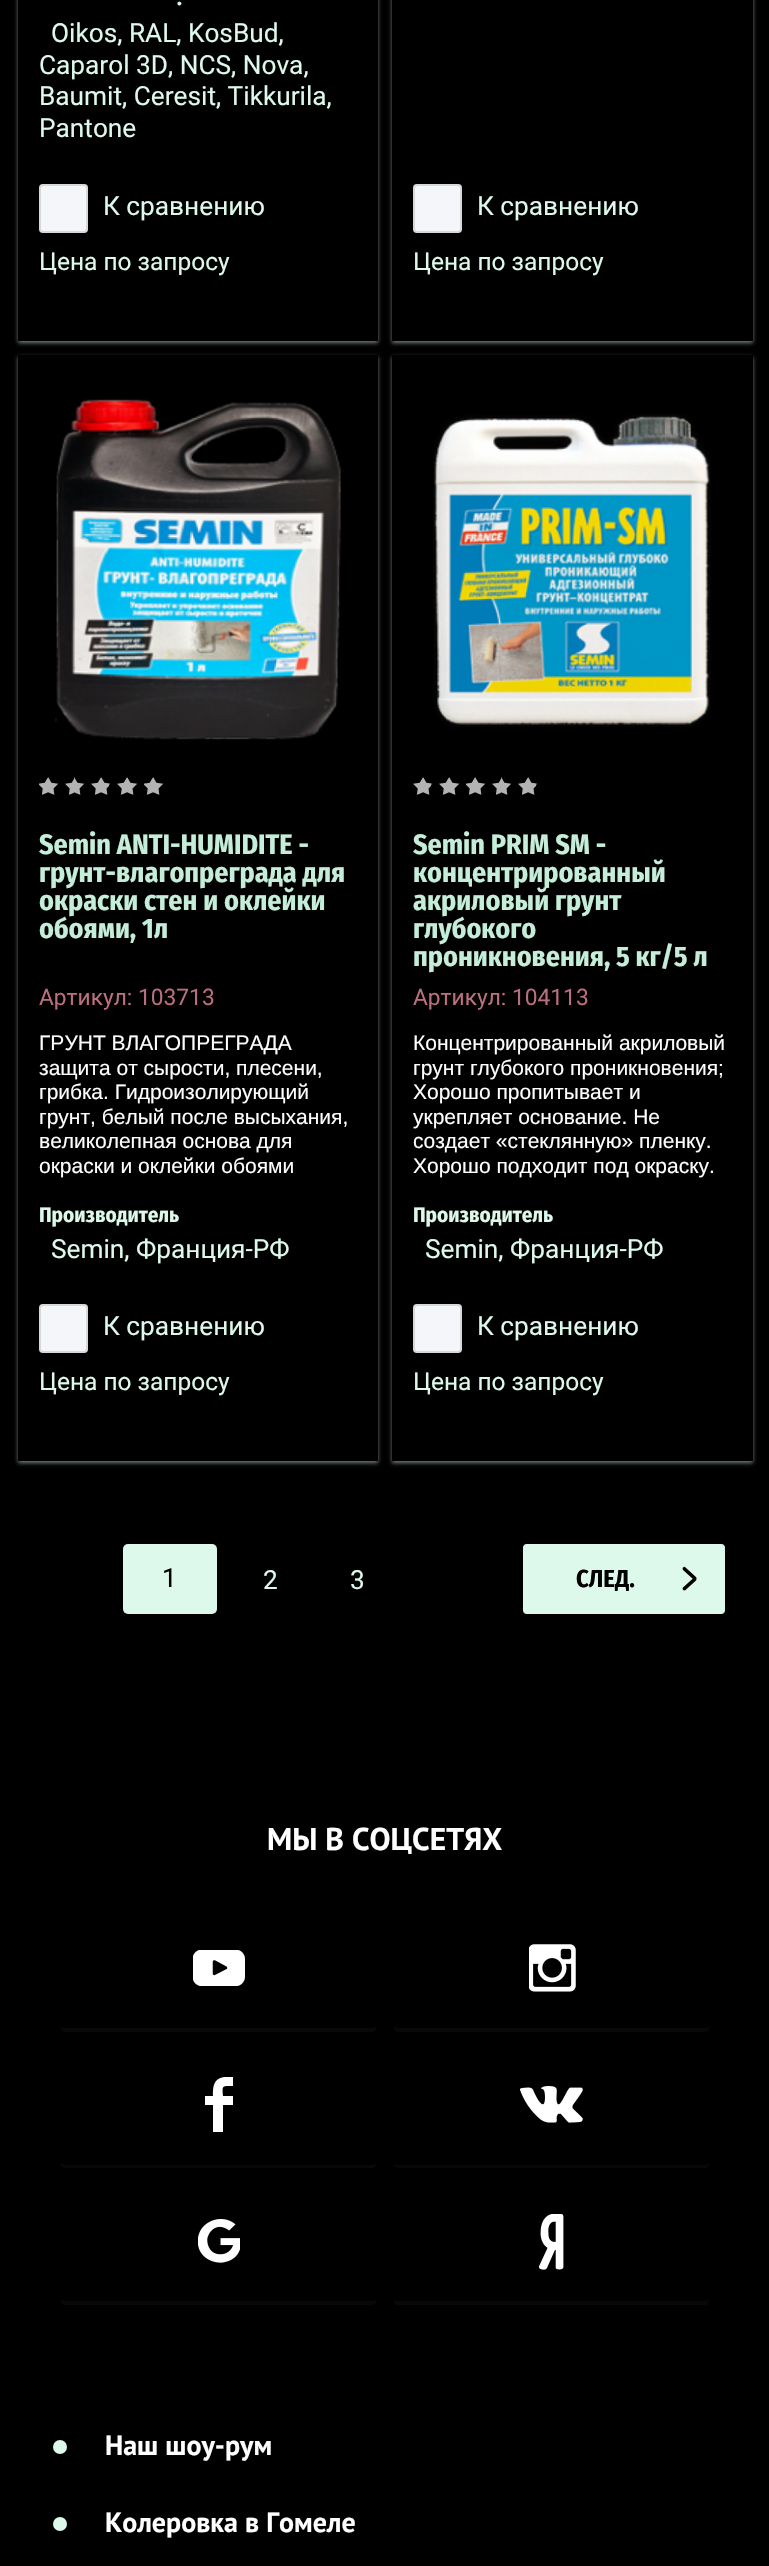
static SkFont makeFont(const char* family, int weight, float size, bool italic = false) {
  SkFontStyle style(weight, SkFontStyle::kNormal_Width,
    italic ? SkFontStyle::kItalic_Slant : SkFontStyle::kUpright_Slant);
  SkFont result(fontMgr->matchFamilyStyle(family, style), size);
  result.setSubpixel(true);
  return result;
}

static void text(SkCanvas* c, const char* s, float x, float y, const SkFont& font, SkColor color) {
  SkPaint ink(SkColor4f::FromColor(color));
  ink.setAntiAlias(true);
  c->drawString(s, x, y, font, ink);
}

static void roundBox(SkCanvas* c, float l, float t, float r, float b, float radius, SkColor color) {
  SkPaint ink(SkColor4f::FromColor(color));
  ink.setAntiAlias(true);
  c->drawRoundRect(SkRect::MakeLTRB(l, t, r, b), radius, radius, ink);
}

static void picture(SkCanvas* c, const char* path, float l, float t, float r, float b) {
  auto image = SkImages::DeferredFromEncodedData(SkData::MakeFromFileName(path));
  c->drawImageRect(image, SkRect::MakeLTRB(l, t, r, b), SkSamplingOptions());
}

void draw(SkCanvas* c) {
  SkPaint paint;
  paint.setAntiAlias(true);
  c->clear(0xff000000);
  c->save();
  c->clipPath(SkPathBuilder(SkPathFillType::kEvenOdd).moveTo(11, 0).lineTo(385, 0).lineTo(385, 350).lineTo(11, 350).close().moveTo(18, -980).lineTo(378, -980).lineTo(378, 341).lineTo(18, 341).close().detach(), true);
  paint.setColor(0x80ddf9eb);
  paint.setMaskFilter(SkMaskFilter::MakeBlur(kNormal_SkBlurStyle, 2));
  c->drawRect(SkRect::MakeLTRB(18, -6, 378, 343), paint);
  paint.setMaskFilter(nullptr);
  c->restore();
  SkFont face1 = makeFont("Fira Sans Condensed", 700, 21);
  text(c, ".", 177, 5, face1, 0xffddf9eb);
  SkFont face2 = makeFont("Roboto", 400, 26.25f);
  text(c, "Oikos, RAL, KosBud,", 51, 42, face2, 0xffddf9eb);
  text(c, "Caparol 3D, NCS, Nova,", 39, 74, face2, 0xffddf9eb);
  text(c, "Baumit, Ceresit, Tikkurila,", 39, 105, face2, 0xffddf9eb);
  text(c, "Pantone", 39, 137, face2, 0xffddf9eb);
  roundBox(c, 39, 184, 88, 233, 4, 0xfff4f6f9);
  paint.setStyle(SkPaint::kStroke_Style);
  paint.setStrokeWidth(2);
  paint.setColor(0x1f000000);
  c->drawRoundRect(SkRect::MakeLTRB(40, 185, 87, 232), 3, 3, paint);
  text(c, "К сравнению", 103, 215, face2, 0xffddf9eb);
  SkFont face3 = makeFont("Roboto", 400, 24.5f);
  text(c, "Цена по запросу", 39, 270, face3, 0xffddf9eb);
  c->save();
  c->clipPath(SkPathBuilder(SkPathFillType::kEvenOdd).moveTo(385, 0).lineTo(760, 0).lineTo(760, 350).lineTo(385, 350).close().moveTo(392, -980).lineTo(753, -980).lineTo(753, 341).lineTo(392, 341).close().detach(), true);
  paint.setStyle(SkPaint::kFill_Style);
  paint.setColor(0x80ddf9eb);
  paint.setMaskFilter(SkMaskFilter::MakeBlur(kNormal_SkBlurStyle, 2));
  c->drawRect(SkRect::MakeLTRB(392, -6, 753, 343), paint);
  paint.setMaskFilter(nullptr);
  c->restore();
  roundBox(c, 413, 184, 462, 233, 4, 0xfff4f6f9);
  paint.setStyle(SkPaint::kStroke_Style);
  paint.setColor(0x1f000000);
  c->drawRoundRect(SkRect::MakeLTRB(414, 185, 461, 232), 3, 3, paint);
  text(c, "К сравнению", 477, 215, face2, 0xffddf9eb);
  text(c, "Цена по запросу", 413, 270, face3, 0xffddf9eb);
  c->save();
  c->clipPath(SkPathBuilder(SkPathFillType::kEvenOdd).moveTo(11, 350).lineTo(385, 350).lineTo(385, 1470).lineTo(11, 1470).close().moveTo(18, 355).lineTo(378, 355).lineTo(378, 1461).lineTo(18, 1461).close().detach(), true);
  paint.setStyle(SkPaint::kFill_Style);
  paint.setColor(0x80ddf9eb);
  paint.setMaskFilter(SkMaskFilter::MakeBlur(kNormal_SkBlurStyle, 2));
  c->drawRect(SkRect::MakeLTRB(18, 357, 378, 1463), paint);
  paint.setMaskFilter(nullptr);
  c->restore();
  picture(c, "img_01.png", 55, 399, 341, 740);
  picture(c, "img_02.png", 39, 777, 164, 795);
  SkFont face4 = makeFont("Fira Sans Condensed", 700, 28);
  text(c, "Semin ANTI-HUMIDITE -", 39, 854, face4, 0xffc5eeda);
  text(c, "грунт-влагопреграда для", 39, 882, face4, 0xffc5eeda);
  text(c, "окраски стен и оклейки", 39, 910, face4, 0xffc5eeda);
  text(c, "обоями, 1л", 39, 938, face4, 0xffc5eeda);
  SkFont face5 = makeFont("Roboto", 400, 22.75f);
  text(c, "Артикул: 103713", 39, 1005, face5, 0xffbb6f7e);
  SkFont face6 = makeFont("Liberation Sans", 400, 21);
  text(c, "ГРУНТ ВЛАГОПРЕГРАДА", 39, 1050, face6, 0xffffffff);
  text(c, "защита от сырости, плесени,", 39, 1075, face6, 0xffffffff);
  text(c, "грибка. Гидроизолирующий", 39, 1099, face6, 0xffffffff);
  text(c, "грунт, белый после высыхания,", 39, 1124, face6, 0xffffffff);
  text(c, "великолепная основа для", 39, 1148, face6, 0xffffffff);
  text(c, "окраски и оклейки обоями", 39, 1173, face6, 0xffffffff);
  text(c, "Производитель", 39, 1222, face1, 0xffddf9eb);
  text(c, "Semin, Франция-РФ", 51, 1258, face2, 0xffddf9eb);
  roundBox(c, 39, 1304, 88, 1353, 4, 0xfff4f6f9);
  paint.setStyle(SkPaint::kStroke_Style);
  paint.setColor(0x1f000000);
  c->drawRoundRect(SkRect::MakeLTRB(40, 1305, 87, 1352), 3, 3, paint);
  text(c, "К сравнению", 103, 1335, face2, 0xffddf9eb);
  text(c, "Цена по запросу", 39, 1390, face3, 0xffddf9eb);
  c->save();
  c->clipPath(SkPathBuilder(SkPathFillType::kEvenOdd).moveTo(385, 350).lineTo(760, 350).lineTo(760, 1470).lineTo(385, 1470).close().moveTo(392, 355).lineTo(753, 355).lineTo(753, 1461).lineTo(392, 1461).close().detach(), true);
  paint.setStyle(SkPaint::kFill_Style);
  paint.setColor(0x80ddf9eb);
  paint.setMaskFilter(SkMaskFilter::MakeBlur(kNormal_SkBlurStyle, 2));
  c->drawRect(SkRect::MakeLTRB(392, 357, 753, 1463), paint);
  paint.setMaskFilter(nullptr);
  c->restore();
  picture(c, "img_03.png", 433, 414, 711, 727);
  picture(c, "img_04.png", 413, 777, 538, 795);
  text(c, "Semin PRIM SM -", 413, 854, face4, 0xffc5eeda);
  text(c, "концентрированный", 413, 882, face4, 0xffc5eeda);
  text(c, "акриловый грунт", 413, 910, face4, 0xffc5eeda);
  text(c, "глубокого", 413, 938, face4, 0xffc5eeda);
  text(c, "проникновения, 5 кг/5 л", 413, 966, face4, 0xffc5eeda);
  text(c, "Артикул: 104113", 413, 1005, face5, 0xffbb6f7e);
  text(c, "Концентрированный акриловый", 413, 1050, face6, 0xffffffff);
  text(c, "грунт глубокого проникновения;", 413, 1075, face6, 0xffffffff);
  text(c, "Хорошо пропитывает и", 413, 1099, face6, 0xffffffff);
  text(c, "укрепляет основание. Не", 413, 1124, face6, 0xffffffff);
  text(c, "создает «стеклянную» пленку.", 413, 1148, face6, 0xffffffff);
  text(c, "Хорошо подходит под окраску.", 413, 1173, face6, 0xffffffff);
  text(c, "Производитель", 413, 1222, face1, 0xffddf9eb);
  text(c, "Semin, Франция-РФ", 425, 1258, face2, 0xffddf9eb);
  roundBox(c, 413, 1304, 462, 1353, 4, 0xfff4f6f9);
  paint.setStyle(SkPaint::kStroke_Style);
  paint.setColor(0x1f000000);
  c->drawRoundRect(SkRect::MakeLTRB(414, 1305, 461, 1352), 3, 3, paint);
  text(c, "К сравнению", 477, 1335, face2, 0xffddf9eb);
  text(c, "Цена по запросу", 413, 1390, face3, 0xffddf9eb);
  roundBox(c, 123, 1544, 217, 1614, 5, 0xffddf9eb);
  text(c, "1", 162, 1587, face2, 0xff000000);
  text(c, "2", 263, 1589, face2, 0xffddf9eb);
  text(c, "3", 350, 1589, face2, 0xffddf9eb);
  paint.setColor(0xffc5eeda);
  c->drawRoundRect(SkRect::MakeLTRB(524, 1545, 724, 1613), 3, 3, paint);
  roundBox(c, 523, 1544, 725, 1614, 5, 0xffddf9eb);
  SkFont face7 = makeFont("Fira Sans Condensed", 700, 24.5f);
  text(c, "СЛЕД.", 576, 1587, face7, 0xff000000);
  paint.setStyle(SkPaint::kFill_Style);
  paint.setColor(0xff000000);
  c->drawPath(SkPathBuilder().moveTo(685.5f, 1567.5f).lineTo(696, 1577).cubicTo(696.5f, 1577.5f, 696.5f, 1578.5f, 696, 1579.5f).cubicTo(695, 1580, 694, 1580, 693.5f, 1579.5f).lineTo(683, 1570).cubicTo(682.5f, 1569.5f, 682.5f, 1568, 683, 1567.5f).cubicTo(684, 1566.5f, 685, 1566.5f, 685.5f, 1567.5f).close().detach(), paint);
  c->drawPath(SkPathBuilder().moveTo(683, 1587.5f).lineTo(693.5f, 1578).cubicTo(694, 1577, 695, 1577, 696, 1578).cubicTo(696.5f, 1578.5f, 696.5f, 1580, 696, 1580.5f).lineTo(685.5f, 1590).cubicTo(685, 1590.5f, 684, 1590.5f, 683, 1590).cubicTo(682.5f, 1589, 682.5f, 1588, 683, 1587.5f).close().detach(), paint);
  SkFont face8 = makeFont("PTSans", 700, 31.5f);
  text(c, "МЫ В СОЦСЕТЯХ", 267, 1850, face8, 0xffffffff);
  paint.setColor(0xff080808);
  c->drawPath(SkPathBuilder().moveTo(61, 1916).lineTo(61, 2028).cubicTo(61, 2030, 63, 2032, 65, 2032).lineTo(372, 2032).cubicTo(374, 2032, 376, 2030, 376, 2028).lineTo(376, 2026).cubicTo(375, 2027, 374, 2028, 373, 2028).lineTo(65, 2028).cubicTo(63, 2028, 61, 2027, 61, 2025).close().detach(), paint);
  picture(c, "img_05.png", 193, 1950, 245, 1986);
  c->drawPath(SkPathBuilder().moveTo(394, 2026).lineTo(394, 2028).cubicTo(394, 2030, 396, 2032, 398, 2032).lineTo(705, 2032).cubicTo(707, 2032, 709, 2030, 709, 2028).lineTo(709, 1916).lineTo(709, 2025).cubicTo(709, 2027, 707, 2028, 705, 2028).lineTo(397, 2028).cubicTo(396, 2028, 395, 2027, 394, 2026).close().detach(), paint);
  picture(c, "img_06.png", 529, 1944, 576, 1992);
  c->drawPath(SkPathBuilder().moveTo(61, 2052).lineTo(61, 2164).cubicTo(61, 2166, 63, 2168, 65, 2168).lineTo(372, 2168).cubicTo(374, 2168, 376, 2166, 376, 2164).lineTo(376, 2163).cubicTo(375, 2164, 374, 2165, 373, 2165).lineTo(65, 2165).cubicTo(63, 2165, 61, 2163, 61, 2161).close().detach(), paint);
  paint.setColor(0xffffffff);
  c->drawPath(SkPathBuilder(SkPathFillType::kEvenOdd).moveTo(233, 2077).lineTo(233, 2086).cubicTo(222, 2086, 222, 2085, 223, 2096).lineTo(233, 2096).lineTo(233, 2105).lineTo(223, 2105).lineTo(223, 2132).lineTo(213, 2132).lineTo(213, 2105).lineTo(205, 2105).lineTo(205, 2096).lineTo(213, 2096).cubicTo(213, 2087, 213, 2079, 224, 2077).close().detach(), paint);
  paint.setColor(0xff080808);
  c->drawPath(SkPathBuilder().moveTo(394, 2163).lineTo(394, 2164).cubicTo(394, 2166, 396, 2168, 398, 2168).lineTo(705, 2168).cubicTo(707, 2168, 709, 2166, 709, 2164).lineTo(709, 2052).lineTo(709, 2161).cubicTo(709, 2163, 707, 2165, 705, 2165).lineTo(397, 2165).cubicTo(396, 2165, 395, 2164, 394, 2163).close().detach(), paint);
  picture(c, "img_07.png", 520, 2086, 583, 2123);
  c->drawPath(SkPathBuilder().moveTo(61, 2189).lineTo(61, 2301).cubicTo(61, 2303, 63, 2305, 65, 2305).lineTo(372, 2305).cubicTo(374, 2305, 376, 2303, 376, 2301).lineTo(376, 2299).cubicTo(375, 2300, 374, 2301, 373, 2301).lineTo(65, 2301).cubicTo(63, 2301, 61, 2300, 61, 2298).close().detach(), paint);
  picture(c, "img_08.png", 198, 2219, 240, 2263);
  c->drawPath(SkPathBuilder().moveTo(394, 2299).lineTo(394, 2301).cubicTo(394, 2303, 396, 2305, 398, 2305).lineTo(705, 2305).cubicTo(707, 2305, 709, 2303, 709, 2301).lineTo(709, 2189).lineTo(709, 2298).cubicTo(709, 2300, 707, 2301, 705, 2301).lineTo(397, 2301).cubicTo(396, 2301, 395, 2300, 394, 2299).close().detach(), paint);
  picture(c, "img_09.png", 539, 2214, 564, 2270);
  paint.setColor(0xffddf9eb);
  c->drawCircle(60, 2447, 7, paint);
  SkFont face9 = makeFont("PTSans", 700, 28);
  text(c, "Наш шоу-рум", 105, 2455, face9, 0xffffffff);
  c->drawCircle(60, 2524, 7, paint);
  text(c, "Колеровка в Гомеле", 105, 2532, face9, 0xffffffff);
}
